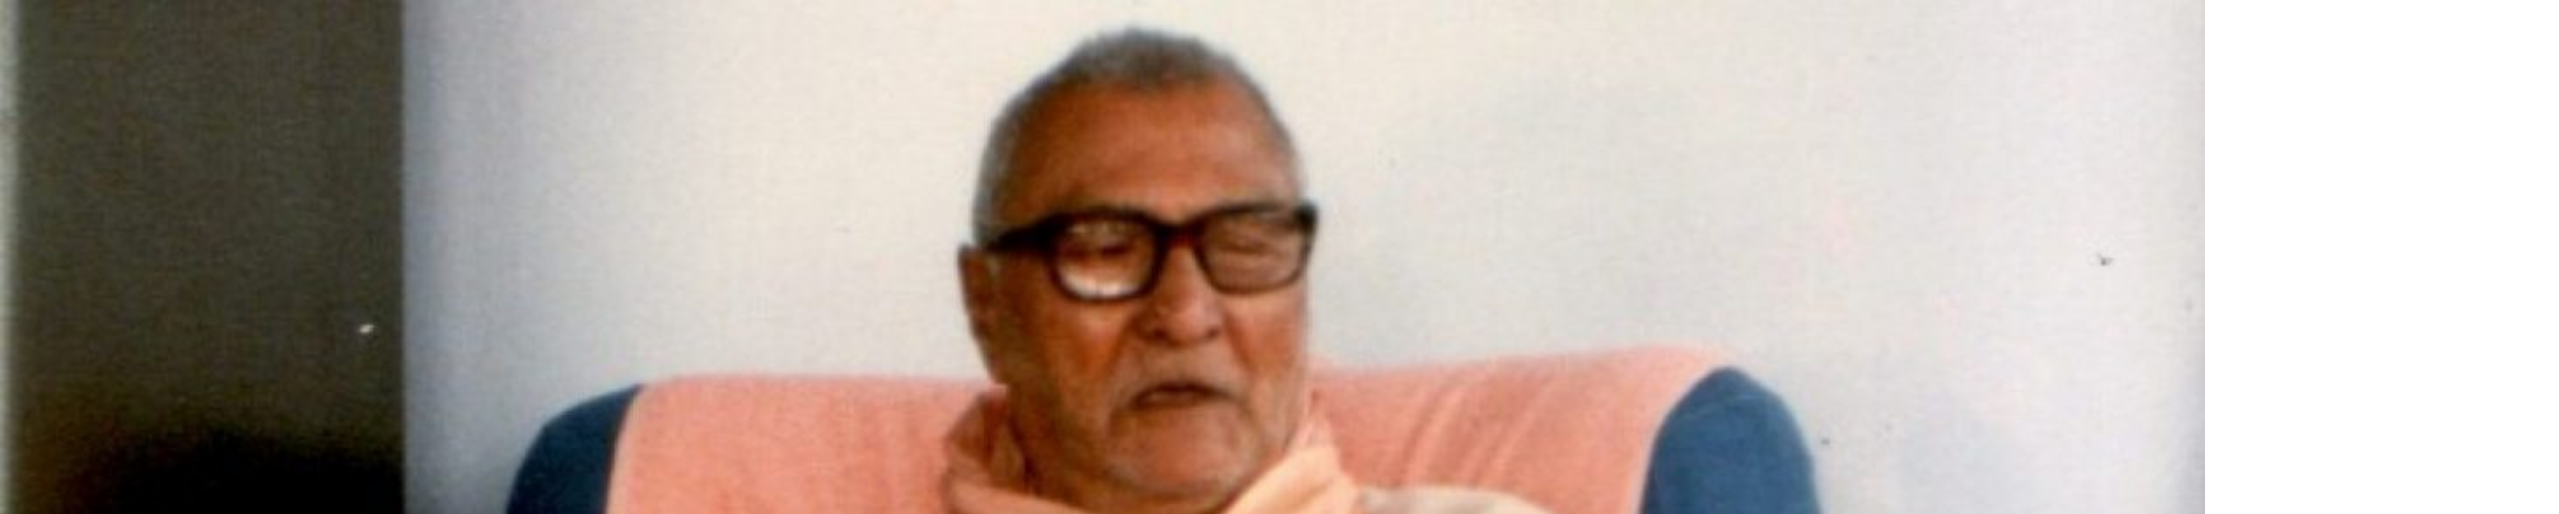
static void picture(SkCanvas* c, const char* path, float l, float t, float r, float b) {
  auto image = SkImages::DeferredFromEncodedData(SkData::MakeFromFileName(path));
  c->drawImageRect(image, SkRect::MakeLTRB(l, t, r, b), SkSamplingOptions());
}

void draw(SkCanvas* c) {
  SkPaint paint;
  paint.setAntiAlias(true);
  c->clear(0xffffffff);
  picture(c, "img_01.png", 0, 0, 2205, 514);
}
